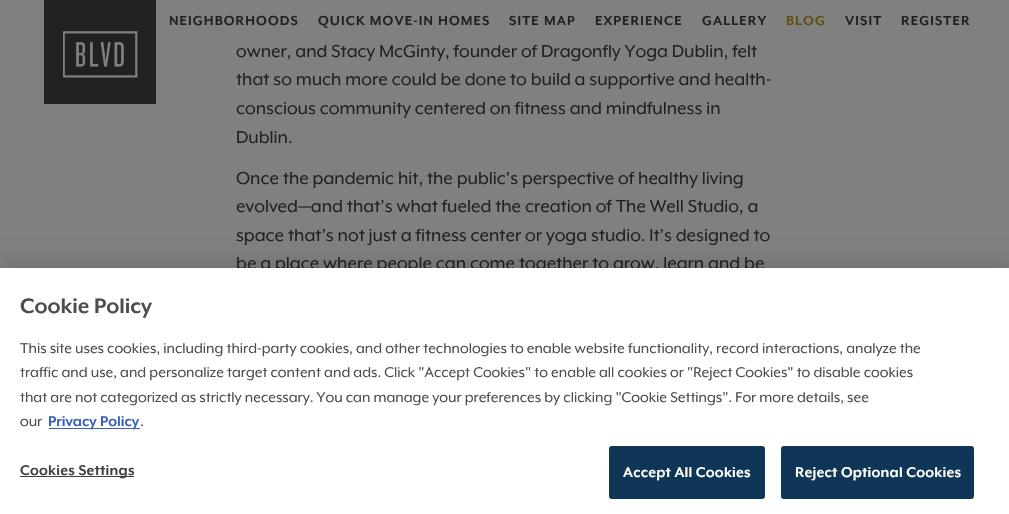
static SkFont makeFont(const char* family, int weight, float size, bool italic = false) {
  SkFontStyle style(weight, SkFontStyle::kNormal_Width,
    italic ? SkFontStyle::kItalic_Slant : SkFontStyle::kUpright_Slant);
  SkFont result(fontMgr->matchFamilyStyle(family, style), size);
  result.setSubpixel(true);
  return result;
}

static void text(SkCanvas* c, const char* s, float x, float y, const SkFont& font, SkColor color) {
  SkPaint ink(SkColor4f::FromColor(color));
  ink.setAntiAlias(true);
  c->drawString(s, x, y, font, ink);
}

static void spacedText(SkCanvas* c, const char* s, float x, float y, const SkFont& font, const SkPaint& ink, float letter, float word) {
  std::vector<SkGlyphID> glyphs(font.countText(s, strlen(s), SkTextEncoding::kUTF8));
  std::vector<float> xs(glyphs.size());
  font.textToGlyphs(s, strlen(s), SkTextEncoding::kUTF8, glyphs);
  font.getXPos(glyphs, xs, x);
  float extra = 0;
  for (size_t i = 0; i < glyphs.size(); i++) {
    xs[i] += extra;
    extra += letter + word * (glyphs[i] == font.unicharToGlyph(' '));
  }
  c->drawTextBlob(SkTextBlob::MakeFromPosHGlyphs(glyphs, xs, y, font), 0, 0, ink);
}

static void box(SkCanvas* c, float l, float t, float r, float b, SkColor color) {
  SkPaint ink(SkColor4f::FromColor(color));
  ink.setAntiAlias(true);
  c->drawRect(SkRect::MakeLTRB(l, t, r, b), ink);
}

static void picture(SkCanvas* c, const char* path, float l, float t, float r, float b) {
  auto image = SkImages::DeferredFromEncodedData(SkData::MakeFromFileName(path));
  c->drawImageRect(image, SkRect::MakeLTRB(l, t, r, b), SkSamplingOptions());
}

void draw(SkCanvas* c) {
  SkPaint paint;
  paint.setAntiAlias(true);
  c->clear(0xff808080);
  box(c, 44, 0, 156, 104, 0xff212121);
  picture(c, "img_01.png", 63, 31, 138, 78);
  SkFont face1 = makeFont("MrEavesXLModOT", 700, 15);
  paint.setColor(0xff212121);
  spacedText(c, "NEIGHBORHOODS", 169, 25, face1, paint, 1.1f, 0);
  spacedText(c, "QUICK MOVE-IN HOMES", 318, 25, face1, paint, 1.1f, 0);
  spacedText(c, "SITE MAP", 509, 25, face1, paint, 1.1f, 0);
  spacedText(c, "EXPERIENCE", 595, 25, face1, paint, 1.1f, 0);
  spacedText(c, "GALLERY", 702, 25, face1, paint, 1.1f, 0);
  paint.setColor(0xff62510e);
  spacedText(c, "BLOG", 786, 25, face1, paint, 1.1f, 0);
  paint.setColor(0xff212121);
  spacedText(c, "VISIT", 845, 25, face1, paint, 1.1f, 0);
  spacedText(c, "REGISTER", 901, 25, face1, paint, 1.1f, 0);
  SkFont face2 = makeFont("MrEavesXLModOT", 400, 20);
  text(c, "owner, and Stacy McGinty, founder of Dragonfly Yoga Dublin, felt", 236, 57, face2, 0xff212121);
  text(c, "that so much more could be done to build a supportive and health-", 236, 85, face2, 0xff212121);
  text(c, "conscious community centered on fitness and mindfulness in", 236, 114, face2, 0xff212121);
  text(c, "Dublin.", 236, 143, face2, 0xff212121);
  text(c, "Once the pandemic hit, the public’s perspective of healthy living", 236, 184, face2, 0xff212121);
  text(c, "evolved—and that’s what fueled the creation of The Well Studio, a", 236, 212, face2, 0xff212121);
  text(c, "space that’s not just a fitness center or yoga studio. It’s designed to", 236, 241, face2, 0xff212121);
  text(c, "be a place where people can come together to grow, learn and be", 236, 269, face2, 0xff212121);
  paint.setColor(0x33000000);
  paint.setMaskFilter(SkMaskFilter::MakeBlur(kNormal_SkBlurStyle, 11));
  c->drawRect(SkRect::MakeLTRB(0, 268, 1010, 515), paint);
  paint.setMaskFilter(nullptr);
  box(c, 0, 268, 1009, 514, 0xffffffff);
  SkFont face3 = makeFont("MrEavesXLModOT", 700, 24);
  text(c, "Cookie Policy", 20, 313, face3, 0xff4d4d4d);
  SkFont face4 = makeFont("MrEavesXLModOT", 400, 16.25f);
  text(c, "This site uses cookies, including third-party cookies, and other technologies to enable website functionality, record interactions, analyze the", 20, 353, face4, 0xff4d4d4d);
  text(c, "traffic and use, and personalize target content and ads. Click \"Accept Cookies\" to enable all cookies or \"Reject Cookies\" to disable cookies", 20, 377, face4, 0xff4d4d4d);
  text(c, "that are not categorized as strictly necessary. You can manage your preferences by clicking \"Cookie Settings\". For more details, see", 20, 402, face4, 0xff4d4d4d);
  text(c, "our", 20, 426, face4, 0xff4d4d4d);
  box(c, 49, 428, 140, 429, 0xff3860be);
  SkFont face5 = makeFont("MrEavesXLModOT", 700, 16.25f);
  text(c, "Privacy Policy", 48, 426, face5, 0xff3860be);
  text(c, ".", 140, 426, face4, 0xff4d4d4d);
  box(c, 20, 476, 134, 477, 0xff3c4347);
  paint.setColor(0xff3c4347);
  spacedText(c, "Cookies Settings", 20, 475, face5, paint, 0.2f, 0);
  paint.setColor(0xff0f3557);
  c->drawRoundRect(SkRect::MakeLTRB(609.5f, 446.5f, 764.5f, 498.5f), 2, 2, paint);
  paint.setStyle(SkPaint::kStroke_Style);
  paint.setStrokeWidth(1);
  c->drawRoundRect(SkRect::MakeLTRB(609.5f, 446.5f, 764.5f, 498.5f), 2, 2, paint);
  paint.setStyle(SkPaint::kFill_Style);
  paint.setColor(0xffffffff);
  spacedText(c, "Accept All Cookies", 623, 477, face5, paint, 0.2f, 0);
  paint.setColor(0xff0f3557);
  c->drawRoundRect(SkRect::MakeLTRB(781.5f, 446.5f, 973.5f, 498.5f), 2, 2, paint);
  paint.setStyle(SkPaint::kStroke_Style);
  c->drawRoundRect(SkRect::MakeLTRB(781.5f, 446.5f, 973.5f, 498.5f), 2, 2, paint);
  paint.setStyle(SkPaint::kFill_Style);
  paint.setColor(0xffffffff);
  spacedText(c, "Reject Optional Cookies", 795, 477, face5, paint, 0.2f, 0);
}
